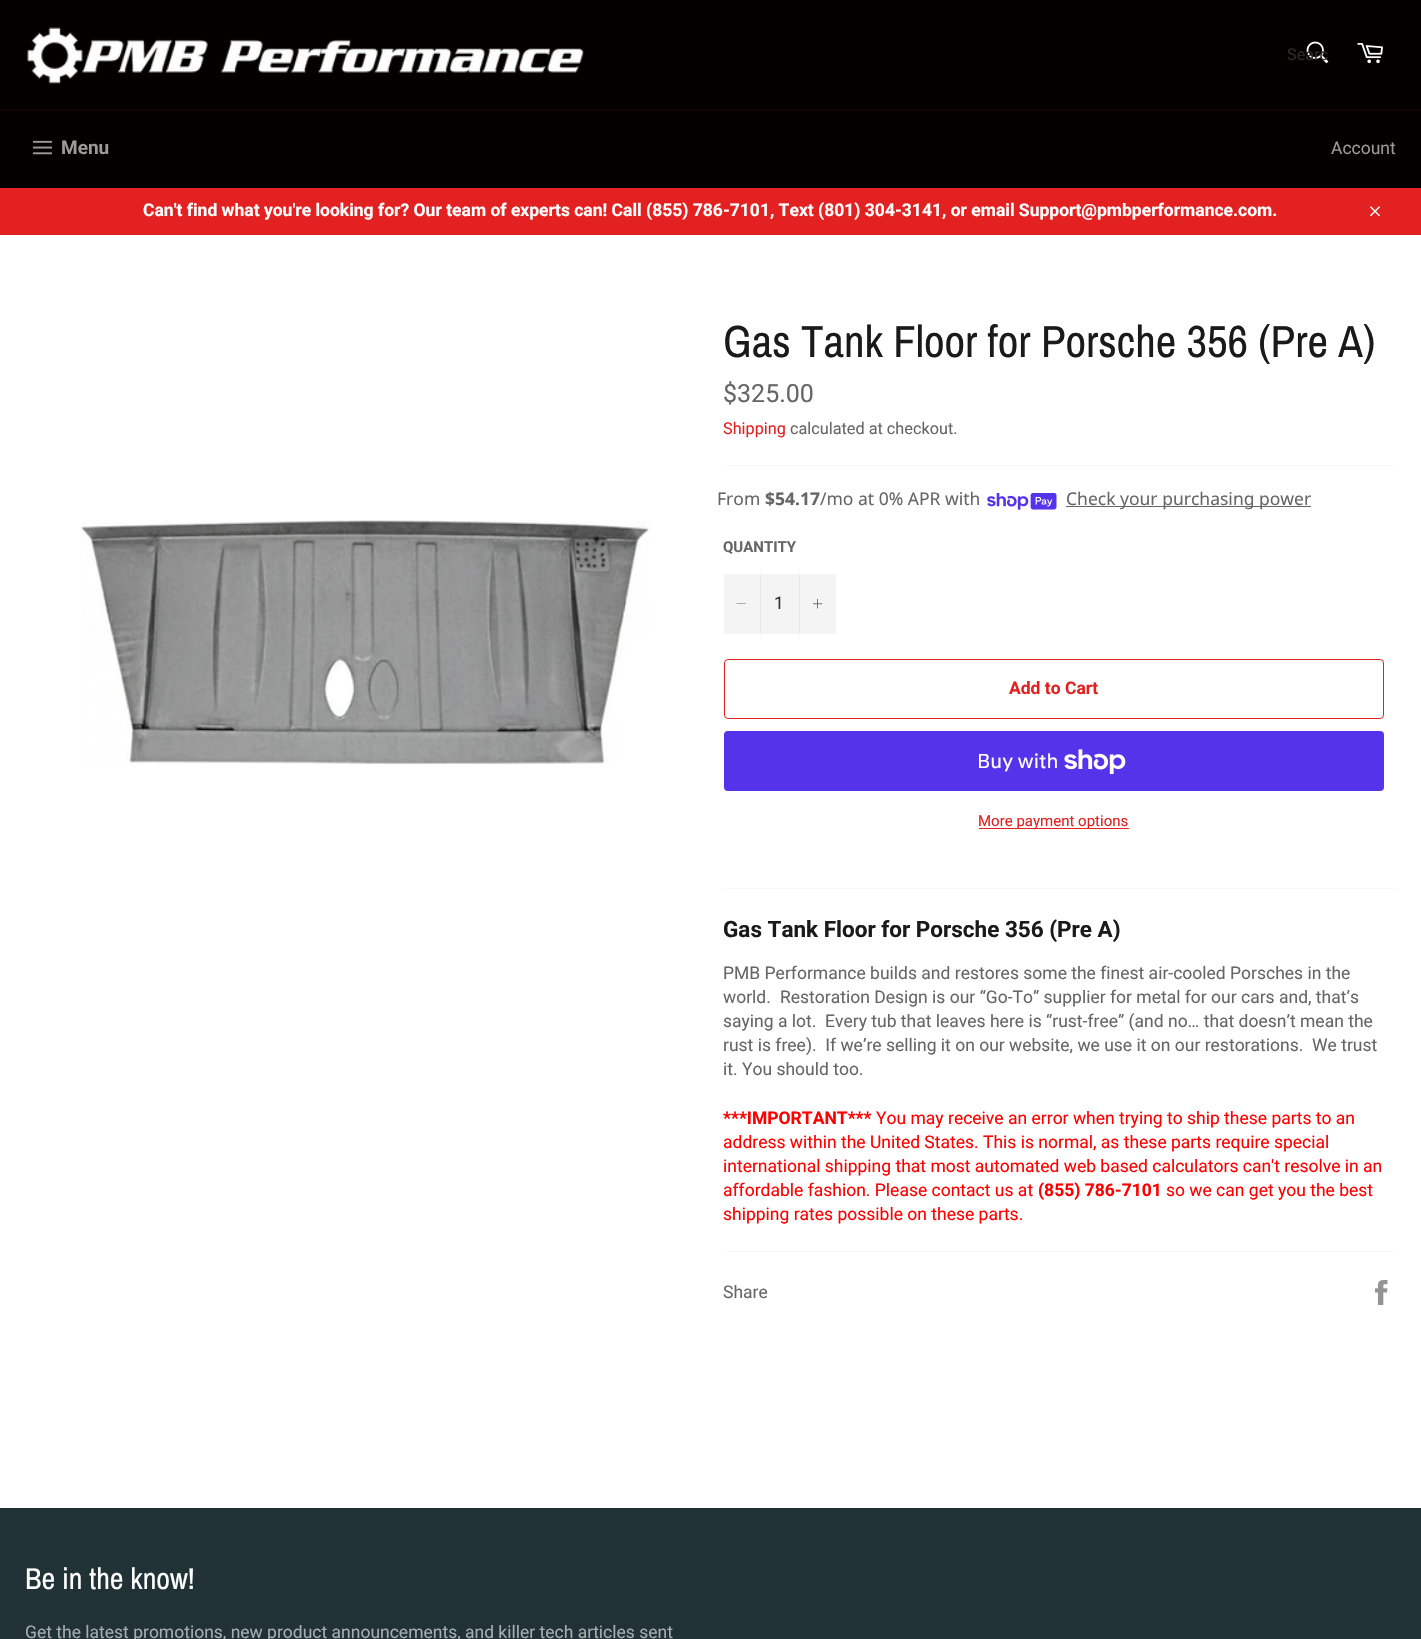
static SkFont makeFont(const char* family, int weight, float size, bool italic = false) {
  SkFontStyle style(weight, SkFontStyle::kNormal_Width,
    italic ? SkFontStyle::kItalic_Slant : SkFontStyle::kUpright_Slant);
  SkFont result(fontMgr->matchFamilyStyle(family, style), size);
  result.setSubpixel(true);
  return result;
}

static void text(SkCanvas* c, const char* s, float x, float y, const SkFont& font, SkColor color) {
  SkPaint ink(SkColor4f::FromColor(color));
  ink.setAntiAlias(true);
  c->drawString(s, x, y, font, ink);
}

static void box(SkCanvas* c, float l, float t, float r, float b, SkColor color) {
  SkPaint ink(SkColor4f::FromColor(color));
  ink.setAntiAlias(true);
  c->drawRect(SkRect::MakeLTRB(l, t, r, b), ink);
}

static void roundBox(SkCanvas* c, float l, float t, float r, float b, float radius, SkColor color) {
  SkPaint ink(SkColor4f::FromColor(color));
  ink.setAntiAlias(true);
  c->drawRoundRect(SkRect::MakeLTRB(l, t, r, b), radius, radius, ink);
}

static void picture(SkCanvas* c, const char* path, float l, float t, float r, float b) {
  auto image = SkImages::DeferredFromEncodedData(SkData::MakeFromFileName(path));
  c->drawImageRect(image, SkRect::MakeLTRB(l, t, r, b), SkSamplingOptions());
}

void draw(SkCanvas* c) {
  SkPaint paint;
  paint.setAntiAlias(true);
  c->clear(0xff050000);
  picture(c, "img_01.png", 27, 27, 584, 84);
  picture(c, "img_02.png", 1306, 41, 1329, 64);
  SkFont face1 = makeFont("Roboto", 400, 16.25f);
  text(c, "Searc", 1287, 60, face1, 0xff2e2a2a);
  picture(c, "img_03.png", 1357, 43, 1383, 64);
  box(c, 0, 109, 1421, 110, 0xff1f0000);
  picture(c, "img_04.png", 32, 140, 53, 155);
  SkFont face2 = makeFont("Roboto", 700, 19);
  text(c, "Menu", 61, 154, face2, 0xff9b9999);
  SkFont face3 = makeFont("Roboto", 400, 17.5f);
  text(c, "Account", 1331, 154, face3, 0xff9b9999);
  box(c, 0, 188, 1421, 235, 0xffe22120);
  SkFont face4 = makeFont("Roboto", 700, 17.5f);
  text(c, "Can't find what you're looking for? Our team of experts can! Call (855) 786-7101, Text (801) 304-3141, or email Support@pmbperformance.com.", 143, 216, face4, 0xffffffff);
  picture(c, "img_05.png", 1370, 206, 1380, 217);
  box(c, 0, 235, 1421, 1508, 0xffffffff);
  picture(c, "img_06.png", 80, 520, 651, 764);
  SkFont face5 = makeFont("Archivo Narrow", 400, 45);
  text(c, "Gas Tank Floor for Porsche 356 (Pre A)", 723, 357, face5, 0xff1a1a1a);
  SkFont face6 = makeFont("Roboto", 400, 25);
  text(c, "$325.00", 723, 402, face6, 0xff666666);
  text(c, "Shipping", 723, 434, face1, 0xffe22120);
  text(c, "calculated at checkout.", 790, 434, face1, 0xff666666);
  box(c, 724, 465, 1396, 466, 0xfff7f7f7);
  SkFont face7 = makeFont("Noto Sans", 400, 17.5f);
  text(c, "From", 717, 505, face7, 0xff666666);
  SkFont face8 = makeFont("Noto Sans", 700, 17.5f);
  text(c, "$54.17", 765, 505, face8, 0xff666666);
  text(c, "/mo at 0% APR with", 820, 505, face7, 0xff666666);
  picture(c, "img_07.png", 987, 493, 1057, 510);
  box(c, 1066, 506, 1311, 507, 0xff666666);
  text(c, "Check your purchasing power", 1066, 505, face7, 0xff666666);
  SkFont face9 = makeFont("Roboto", 700, 15);
  text(c, "QUANTITY", 723, 552, face9, 0xff666666);
  box(c, 724, 574, 836, 634, 0xfff4f4f4);
  box(c, 760, 574, 761, 634, 0xffe7e7e7);
  paint.setColor(0xff666666);
  c->drawPath(SkPathBuilder(SkPathFillType::kEvenOdd).moveTo(746, 603.5f).lineTo(746, 604).lineTo(736.5f, 604).lineTo(736.5f, 603.5f).close().detach(), paint);
  text(c, "1", 774, 609, face3, 0xff333333);
  box(c, 799, 574, 800, 634, 0xffe7e7e7);
  picture(c, "img_08.png", 813, 599, 823, 609);
  paint.setStyle(SkPaint::kStroke_Style);
  paint.setStrokeWidth(1);
  paint.setColor(0xffe22120);
  c->drawRoundRect(SkRect::MakeLTRB(724.5f, 659.5f, 1383.5f, 718.5f), 3.5f, 3.5f, paint);
  text(c, "Add to Cart", 1009, 694, face4, 0xffe22120);
  roundBox(c, 724, 731, 1384, 791, 4, 0xff5433eb);
  SkFont face10 = makeFont("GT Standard", 400, 20);
  text(c, "Buy with", 977, 768, face10, 0xffffffff);
  picture(c, "img_09.png", 1064, 749, 1126, 774);
  box(c, 979, 828, 1129, 829, 0xffe22120);
  SkFont face11 = makeFont("Roboto", 400, 15);
  text(c, "More payment options", 978, 826, face11, 0xffe22120);
  box(c, 724, 888, 1396, 889, 0xfff7f7f7);
  SkFont face12 = makeFont("Roboto", 700, 22.5f);
  text(c, "Gas Tank Floor for Porsche 356 (Pre A)", 723, 937, face12, 0xff1a1a1a);
  text(c, "PMB Performance builds and restores some the finest air-cooled Porsches in the", 723, 979, face3, 0xff666666);
  text(c, "world.", 723, 1003, face3, 0xff666666);
  text(c, "Restoration Design is our “Go-To” supplier for metal for our cars and, that’s", 780, 1003, face3, 0xff666666);
  text(c, "saying a lot.  Every tub that leaves here is “rust-free” (and no… that doesn’t mean the", 723, 1027, face3, 0xff666666);
  text(c, "rust is free).  If we’re selling it on our website, we use it on our restorations.  We trust", 723, 1051, face3, 0xff666666);
  text(c, "it. You should too.", 723, 1075, face3, 0xff666666);
  text(c, "***IMPORTANT***", 723, 1124, face4, 0xffff0000);
  text(c, "You may receive an error when trying to ship these parts to an", 876, 1124, face3, 0xffff0000);
  text(c, "address within the United States. This is normal, as these parts require special", 723, 1148, face3, 0xffff0000);
  text(c, "international shipping that most automated web based calculators can't resolve in an", 723, 1172, face3, 0xffff0000);
  text(c, "affordable fashion. Please contact us at", 723, 1196, face3, 0xffff0000);
  text(c, "(855) 786-7101", 1038, 1196, face4, 0xffff0000);
  text(c, "so we can get you the best", 1166, 1196, face3, 0xffff0000);
  text(c, "shipping rates possible on these parts.", 723, 1220, face3, 0xffff0000);
  box(c, 724, 1251, 1396, 1252, 0xfff7f7f7);
  text(c, "Share", 723, 1298, face3, 0xff666666);
  picture(c, "img_10.png", 1375, 1280, 1388, 1305);
  box(c, 0, 1508, 1421, 1639, 0xff213236);
  SkFont face13 = makeFont("Archivo Narrow", 400, 30);
  text(c, "Be in the know!", 25, 1589, face13, 0xffffffff);
  text(c, "Get the latest promotions, new product announcements, and killer tech articles sent", 25, 1638, face3, 0xffa6adaf);
}
